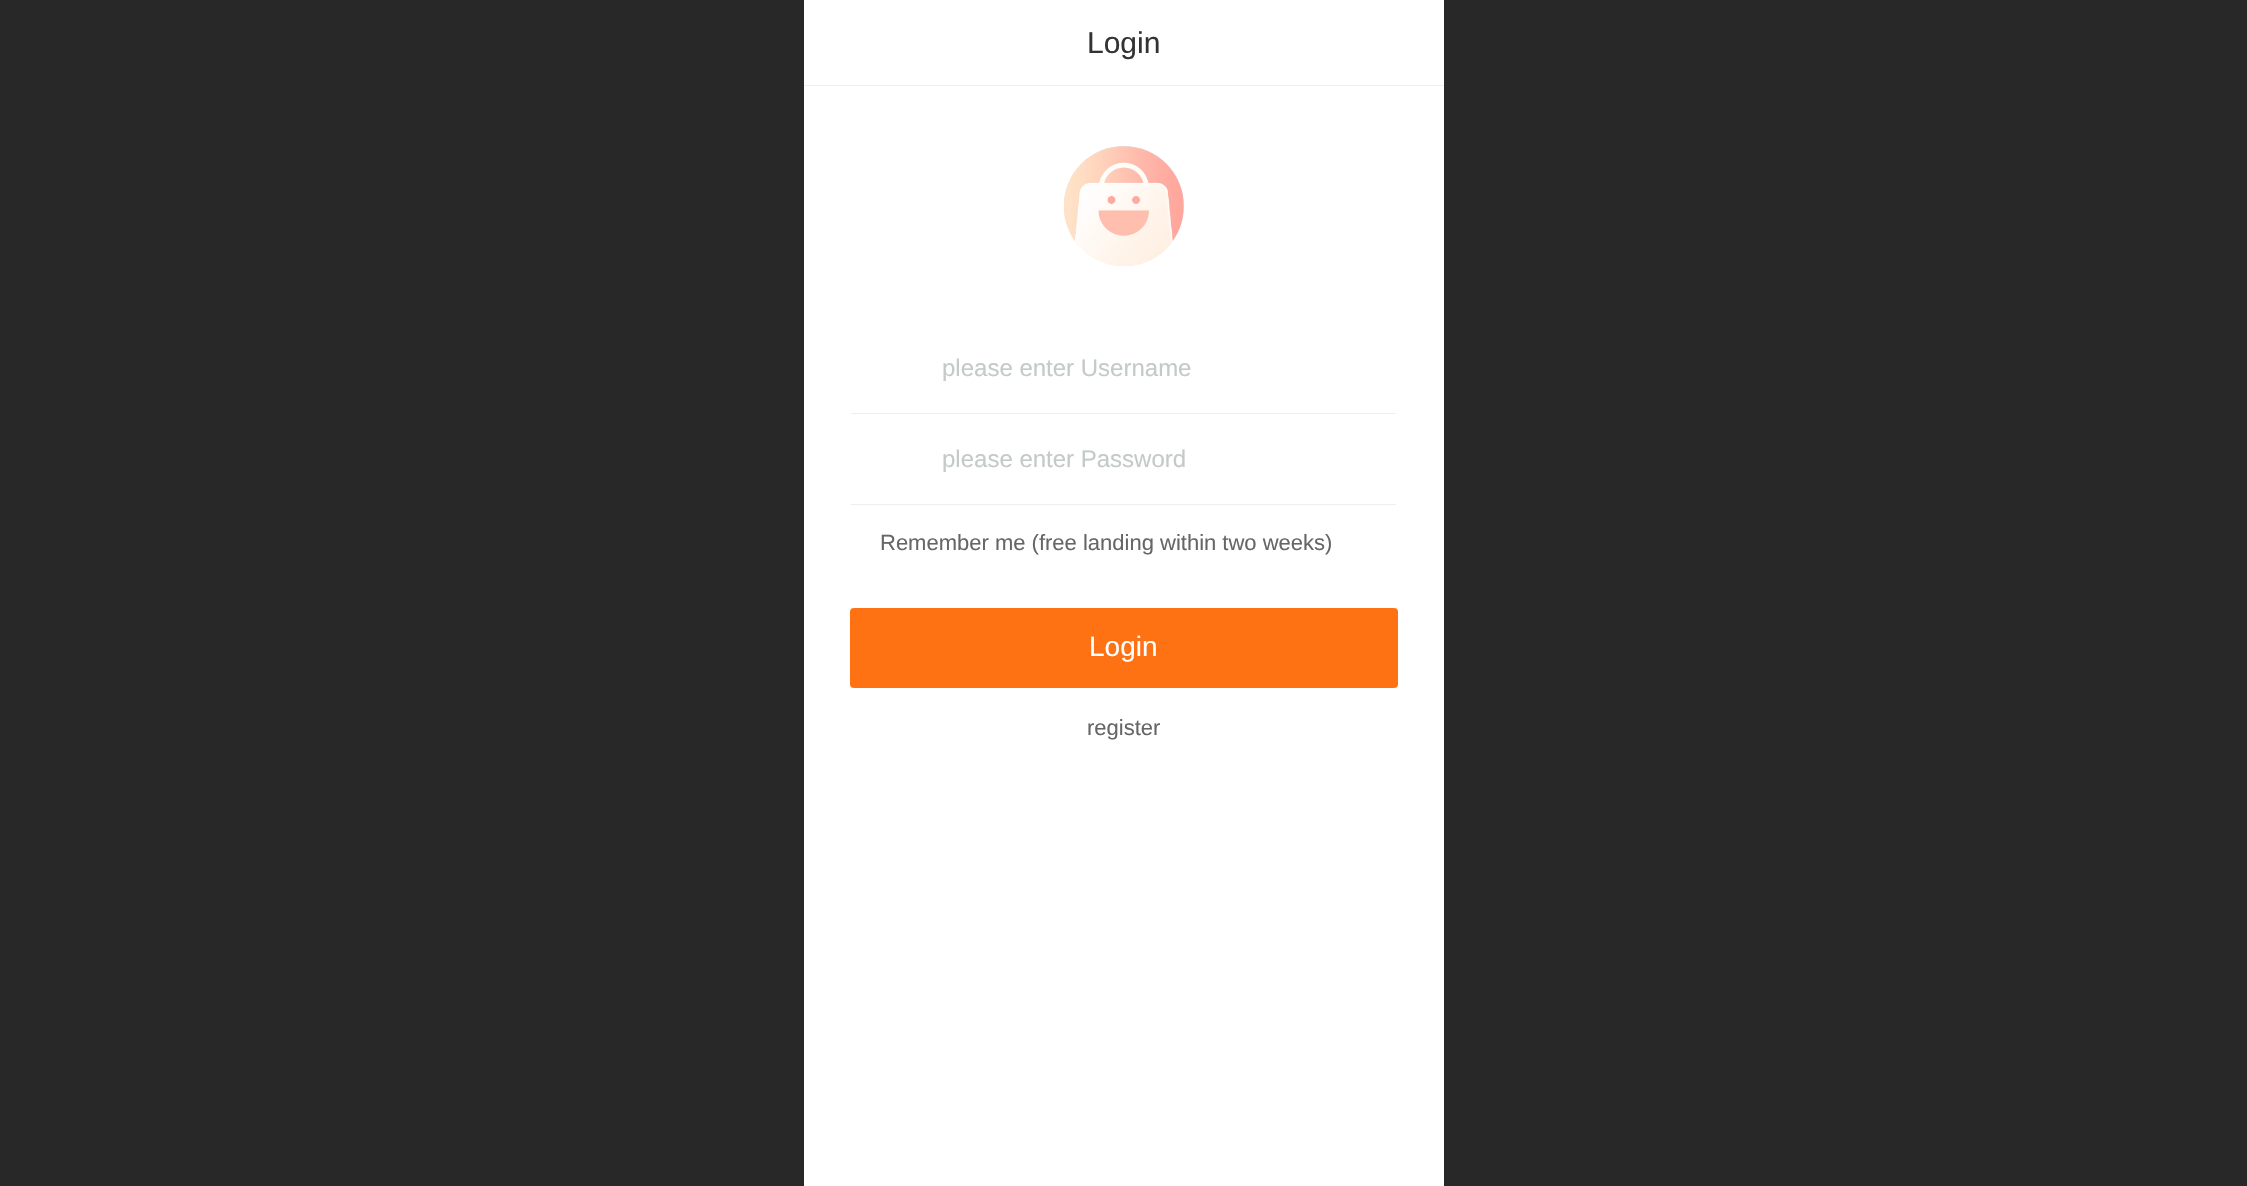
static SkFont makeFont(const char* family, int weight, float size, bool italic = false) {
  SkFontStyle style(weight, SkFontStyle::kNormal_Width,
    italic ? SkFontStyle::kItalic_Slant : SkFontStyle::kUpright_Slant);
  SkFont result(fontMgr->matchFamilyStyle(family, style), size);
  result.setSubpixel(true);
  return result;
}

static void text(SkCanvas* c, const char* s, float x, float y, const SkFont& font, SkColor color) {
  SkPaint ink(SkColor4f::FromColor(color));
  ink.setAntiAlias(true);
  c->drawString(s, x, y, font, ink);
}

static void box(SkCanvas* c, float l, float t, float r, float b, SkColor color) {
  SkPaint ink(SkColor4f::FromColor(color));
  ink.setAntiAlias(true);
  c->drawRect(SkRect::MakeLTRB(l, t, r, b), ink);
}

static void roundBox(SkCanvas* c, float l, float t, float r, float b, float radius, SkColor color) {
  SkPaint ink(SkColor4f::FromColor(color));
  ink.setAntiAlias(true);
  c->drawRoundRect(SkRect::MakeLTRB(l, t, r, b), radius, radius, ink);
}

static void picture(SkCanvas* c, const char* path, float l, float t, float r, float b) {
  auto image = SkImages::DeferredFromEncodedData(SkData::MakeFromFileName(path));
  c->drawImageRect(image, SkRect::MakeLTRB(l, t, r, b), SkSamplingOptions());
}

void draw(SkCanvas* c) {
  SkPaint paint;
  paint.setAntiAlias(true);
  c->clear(0xffffffff);
  box(c, 0, 0, 804, 1186, 0xff282828);
  box(c, 804, 85, 1444, 86, 0xffeeeeee);
  SkFont face1 = makeFont("Liberation Sans", 400, 30);
  text(c, "Login", 1087, 53, face1, 0xff333333);
  paint.setColor(0xffdfe0e2);
  c->drawCircle(1124, 206, 60, paint);
  picture(c, "img_01.png", 1063, 146, 1184, 266);
  box(c, 851, 413, 1396, 414, 0xffeeeeee);
  SkFont face2 = makeFont("Liberation Sans", 400, 24);
  text(c, "please enter Username", 942, 376, face2, 0xffc4c9ca);
  box(c, 851, 504, 1396, 505, 0xffeeeeee);
  text(c, "please enter Password", 942, 467, face2, 0xffc4c9ca);
  SkFont face3 = makeFont("Liberation Sans", 400, 22);
  text(c, "Remember me (free landing within two weeks)", 880, 550, face3, 0xff666666);
  roundBox(c, 850, 608, 1398, 688, 4, 0xffff7214);
  SkFont face4 = makeFont("Liberation Sans", 400, 28);
  text(c, "Login", 1089, 656, face4, 0xffffffff);
  text(c, "register", 1087, 735, face3, 0xff666666);
  box(c, 1444, 0, 2247, 1186, 0xff282828);
}
